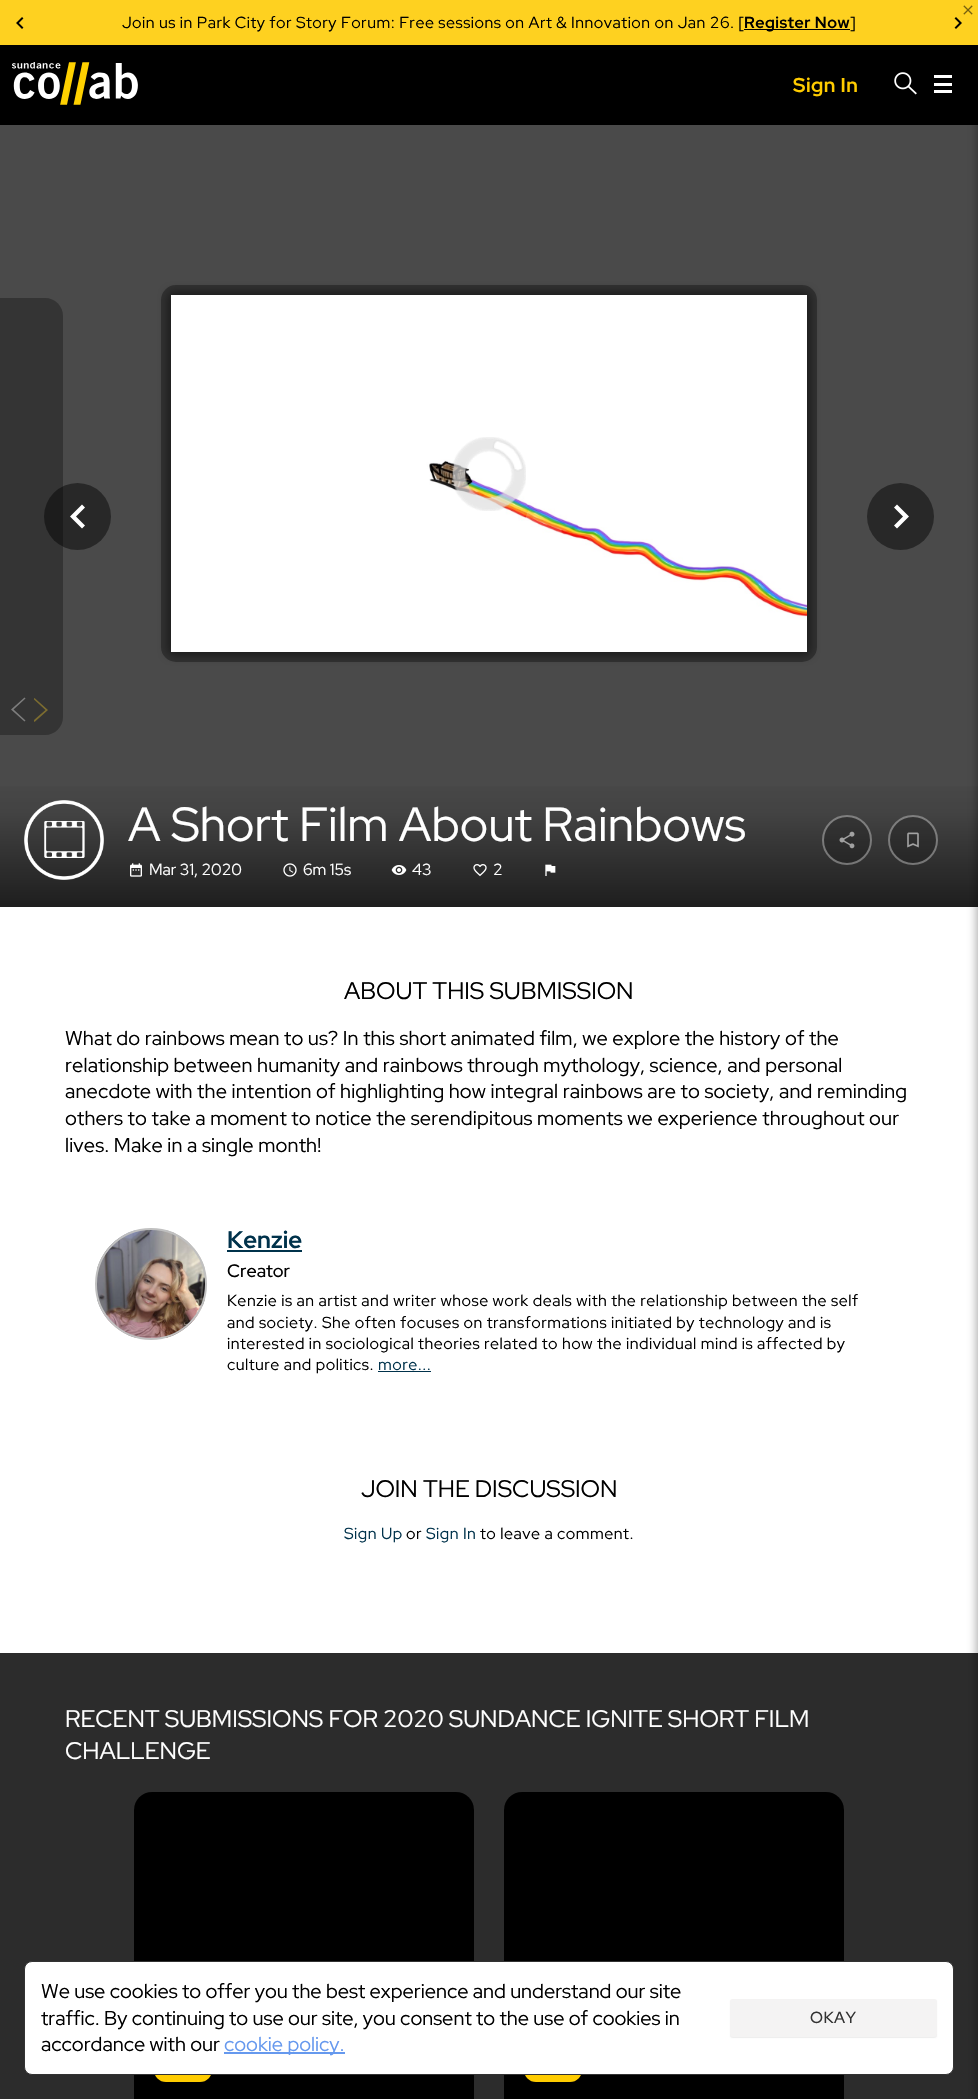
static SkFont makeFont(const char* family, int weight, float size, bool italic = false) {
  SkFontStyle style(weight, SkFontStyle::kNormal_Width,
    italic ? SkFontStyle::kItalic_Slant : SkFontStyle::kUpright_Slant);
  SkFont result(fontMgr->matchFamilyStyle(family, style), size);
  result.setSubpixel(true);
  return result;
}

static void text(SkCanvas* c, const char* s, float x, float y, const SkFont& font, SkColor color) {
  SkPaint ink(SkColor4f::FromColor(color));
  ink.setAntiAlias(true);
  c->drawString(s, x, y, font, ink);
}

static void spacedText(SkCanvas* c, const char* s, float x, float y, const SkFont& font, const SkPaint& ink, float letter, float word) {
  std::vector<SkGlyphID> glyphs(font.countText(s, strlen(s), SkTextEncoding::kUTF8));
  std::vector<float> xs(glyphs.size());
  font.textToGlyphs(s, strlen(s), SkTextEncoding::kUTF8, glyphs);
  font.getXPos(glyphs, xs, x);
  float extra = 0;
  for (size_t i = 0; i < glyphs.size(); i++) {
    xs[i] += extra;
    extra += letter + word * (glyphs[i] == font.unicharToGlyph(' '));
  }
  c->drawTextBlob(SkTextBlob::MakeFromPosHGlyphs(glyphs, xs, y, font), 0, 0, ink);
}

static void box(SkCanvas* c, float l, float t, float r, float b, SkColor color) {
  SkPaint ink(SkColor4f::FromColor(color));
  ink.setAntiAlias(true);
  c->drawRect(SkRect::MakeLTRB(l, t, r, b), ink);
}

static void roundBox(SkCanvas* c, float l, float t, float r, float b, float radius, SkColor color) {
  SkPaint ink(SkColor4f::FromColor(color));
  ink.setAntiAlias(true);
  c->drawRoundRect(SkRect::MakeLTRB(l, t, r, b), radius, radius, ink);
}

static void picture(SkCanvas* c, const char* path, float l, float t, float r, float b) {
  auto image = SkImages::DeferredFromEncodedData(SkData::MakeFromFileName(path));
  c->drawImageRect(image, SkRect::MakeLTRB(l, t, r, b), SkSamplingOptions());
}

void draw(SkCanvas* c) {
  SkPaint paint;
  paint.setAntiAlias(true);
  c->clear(0xff4a4a4a);
  box(c, 0, 0, 978, 45, 0xfffed120);
  picture(c, "img_01.png", 963, 5, 973, 15);
  picture(c, "img_02.png", 16, 17, 24, 29);
  SkFont face1 = makeFont("Red Hat Display", 400, 16);
  paint.setColor(0xff000000);
  spacedText(c, "Join us in Park City for Story Forum: Free sessions on Art & Innovation on Jan 26. [", 122, 28, face1, paint, 0.5f, 0);
  box(c, 744, 29, 850, 30, 0xff000000);
  SkFont face2 = makeFont("Red Hat Display", 700, 16);
  spacedText(c, "Register Now", 744, 28, face2, paint, 0.5f, 0);
  spacedText(c, "]", 850, 28, face1, paint, 0.5f, 0);
  picture(c, "img_03.png", 954, 17, 962, 29);
  box(c, 0, 45, 978, 125, 0xff000000);
  picture(c, "img_04.png", 12, 62, 138, 105);
  SkFont face3 = makeFont("Red Hat Display", 700, 20);
  paint.setColor(0xffffcc00);
  spacedText(c, "Sign In", 793, 92, face3, paint, 0.5f, 0);
  picture(c, "img_05.png", 894, 72, 917, 95);
  box(c, 934, 75, 952, 78, 0xffffffff);
  box(c, 934, 83, 952, 86, 0xffffffff);
  box(c, 934, 90, 952, 93, 0xffffffff);
  {
    const SkColor colors[] = {0x00000000, 0x1a000000, 0x99000000};
    const float stops[] = {0, 0.3f, 1};
    const SkPoint ends[] = {{489, 772}, {489, 907}};
    paint.setShader(SkGradientShader::MakeLinear(ends, colors, stops, 3, SkTileMode::kClamp));
    paint.setAlpha(255);
  }
  c->drawRect(SkRect::MakeLTRB(0, 786, 978, 907), paint);
  box(c, 0, 907, 978, 1653, 0xffffffff);
  box(c, 0, 1653, 978, 2099, 0xff2c2c2c);
  paint.setShader(nullptr);
  paint.setColor(0x4d000000);
  paint.setMaskFilter(SkMaskFilter::MakeBlur(kNormal_SkBlurStyle, 4));
  c->drawRect(SkRect::MakeLTRB(976, 78, 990, 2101), paint);
  paint.setMaskFilter(nullptr);
  paint.setColor(0xff282828);
  c->drawCircle(77.5f, 516.5f, 33.5f, paint);
  paint.setColor(0x4d000000);
  c->drawPath(SkPathBuilder().moveTo(0, 298).lineTo(45, 298).cubicTo(55, 298, 63, 306, 63, 316).lineTo(63, 717).cubicTo(63, 727, 55, 735, 45, 735).lineTo(0, 735).close().detach(), paint);
  paint.setColor(0xff7d7d7d);
  c->drawPath(SkPathBuilder().moveTo(24.5f, 721.5f).lineTo(11, 709.5f).lineTo(24.5f, 697.5f).lineTo(25.5f, 698.5f).lineTo(13.5f, 709.5f).lineTo(25.5f, 720.5f).close().detach(), paint);
  c->save();
  c->clipRect(SkRect::MakeLTRB(34, 698, 48, 722));
  paint.setColor(0xff7c6c2f);
  c->drawPath(SkPathBuilder().moveTo(34.5f, 698).lineTo(48, 710).lineTo(34.5f, 722).lineTo(33.5f, 720.5f).lineTo(45.5f, 710).lineTo(33.5f, 699).close().detach(), paint);
  c->restore();
  paint.setColor(0xffffffff);
  c->drawPath(SkPathBuilder().moveTo(85, 507.5f).lineTo(76, 516.5f).lineTo(85, 525.5f).lineTo(82, 528.5f).lineTo(70, 516.5f).lineTo(82, 504.5f).close().detach(), paint);
  paint.setStyle(SkPaint::kStroke_Style);
  paint.setStrokeWidth(10);
  paint.setColor(0xff323232);
  c->drawRoundRect(SkRect::MakeLTRB(166, 290, 812, 657), 10, 10, paint);
  paint.setStyle(SkPaint::kFill_Style);
  paint.setColor(0x80000000);
  paint.setMaskFilter(SkMaskFilter::MakeBlur(kNormal_SkBlurStyle, 5));
  c->drawRect(SkRect::MakeLTRB(168, 292, 810, 655), paint);
  paint.setMaskFilter(nullptr);
  picture(c, "img_06.png", 171, 295, 807, 652);
  picture(c, "img_07.png", 452, 437, 526, 511);
  picture(c, "img_08.png", 452, 437, 526, 511);
  paint.setColor(0xff282828);
  c->drawCircle(900.5f, 516.5f, 33.5f, paint);
  paint.setColor(0xffffffff);
  c->drawPath(SkPathBuilder().moveTo(897, 504.5f).lineTo(909, 516.5f).lineTo(897, 528.5f).lineTo(894, 525.5f).lineTo(903, 516.5f).lineTo(894, 507.5f).close().detach(), paint);
  picture(c, "img_09.png", 24, 800, 104, 880);
  SkFont face4 = makeFont("Red Hat Display", 400, 48);
  text(c, "A Short Film About Rainbows", 128, 841, face4, 0xffffffff);
  picture(c, "img_10.png", 130, 863, 142, 877);
  text(c, "Mar 31, 2020", 149, 875, face1, 0xffffffff);
  picture(c, "img_11.png", 283, 863, 297, 877);
  text(c, "6m 15s", 303, 875, face1, 0xffffffff);
  picture(c, "img_12.png", 391, 865, 407, 875);
  text(c, "43", 412, 875, face1, 0xffffffff);
  picture(c, "img_13.png", 473, 864, 487, 877);
  text(c, "2", 493, 875, face1, 0xffffffff);
  picture(c, "img_14.png", 545, 864, 556, 876);
  paint.setColor(0x33000000);
  c->drawCircle(847, 840, 25, paint);
  picture(c, "img_15.png", 839, 831, 855, 849);
  paint.setStyle(SkPaint::kStroke_Style);
  paint.setStrokeWidth(2);
  paint.setColor(0x66eeeeee);
  c->drawCircle(847, 840, 24, paint);
  paint.setStyle(SkPaint::kFill_Style);
  paint.setColor(0x33000000);
  c->drawCircle(913, 840, 25, paint);
  picture(c, "img_16.png", 907, 832, 919, 848);
  paint.setStyle(SkPaint::kStroke_Style);
  paint.setColor(0x66eeeeee);
  c->drawCircle(913, 840, 24, paint);
  SkFont face5 = makeFont("Red Hat Display", 400, 24);
  text(c, "ABOUT THIS SUBMISSION", 344, 999, face5, 0xff000000);
  SkFont face6 = makeFont("Red Hat Display", 400, 20);
  paint.setStyle(SkPaint::kFill_Style);
  paint.setColor(0xff000000);
  spacedText(c, "What do rainbows mean to us? In this short animated film, we explore the history of the", 65, 1045, face6, paint, 0.15f, 0);
  spacedText(c, "relationship between humanity and rainbows through mythology, science, and personal", 65, 1072, face6, paint, 0.15f, 0);
  spacedText(c, "anecdote with the intention of highlighting how integral rainbows are to society, and reminding", 65, 1098, face6, paint, 0.15f, 0);
  spacedText(c, "others to take a moment to notice the serendipitous moments we experience throughout our", 65, 1125, face6, paint, 0.15f, 0);
  spacedText(c, "lives. Make in a single month!", 65, 1152, face6, paint, 0.15f, 0);
  picture(c, "img_17.png", 97, 1230, 205, 1338);
  paint.setStyle(SkPaint::kStroke_Style);
  paint.setColor(0xffc0c0c0);
  c->drawCircle(151, 1284, 55, paint);
  SkFont face7 = makeFont("Red Hat Display", 700, 24);
  text(c, "Kenzie", 227, 1248, face7, 0xff00324b);
  box(c, 227, 1250, 302, 1252, 0xff00324b);
  SkFont face8 = makeFont("Red Hat Display", 500, 18);
  text(c, "Creator", 227, 1277, face8, 0xff000000);
  paint.setStyle(SkPaint::kFill_Style);
  paint.setColor(0xff000000);
  spacedText(c, "Kenzie is an artist and writer whose work deals with the relationship between the self", 227, 1306, face1, paint, 0.5f, 0);
  spacedText(c, "and society. She often focuses on transformations initiated by technology and is", 227, 1328, face1, paint, 0.5f, 0);
  spacedText(c, "interested in sociological theories related to how the individual mind is affected by", 227, 1349, face1, paint, 0.5f, 0);
  spacedText(c, "culture and politics.", 227, 1370, face1, paint, 0.5f, 0);
  paint.setColor(0xff00324b);
  spacedText(c, "more...", 378, 1370, face1, paint, 0.5f, 0);
  box(c, 378, 1371, 431, 1372, 0xff00324b);
  text(c, "JOIN THE DISCUSSION", 361, 1497, face5, 0xff000000);
  spacedText(c, "Sign Up", 344, 1539, face1, paint, 0.5f, 0);
  paint.setColor(0xff000000);
  spacedText(c, "or", 406, 1539, face1, paint, 0.5f, 0);
  paint.setColor(0xff00324b);
  spacedText(c, "Sign In", 426, 1539, face1, paint, 0.5f, 0);
  paint.setColor(0xff000000);
  spacedText(c, "to leave a comment.", 480, 1539, face1, paint, 0.5f, 0);
  text(c, "RECENT SUBMISSIONS FOR 2020 SUNDANCE IGNITE SHORT FILM", 65, 1727, face5, 0xffffffff);
  text(c, "CHALLENGE", 65, 1759, face5, 0xffffffff);
  roundBox(c, 134, 1792, 474, 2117, 18, 0xff000000);
  roundBox(c, 154, 2058, 212, 2082, 12, 0xffffcc00);
  roundBox(c, 504, 1792, 844, 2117, 18, 0xff000000);
  roundBox(c, 524, 2058, 582, 2082, 12, 0xffffcc00);
  paint.setColor(0xffffffff);
  c->drawRoundRect(SkRect::MakeLTRB(24.5f, 1961.5f, 953.5f, 2074.5f), 7.5f, 7.5f, paint);
  paint.setStyle(SkPaint::kStroke_Style);
  paint.setStrokeWidth(1);
  paint.setColor(0xff333333);
  c->drawRoundRect(SkRect::MakeLTRB(24.5f, 1961.5f, 953.5f, 2074.5f), 7.5f, 7.5f, paint);
  text(c, "We use cookies to offer you the best experience and understand our site", 41, 1998, face6, 0xff000000);
  text(c, "traffic. By continuing to use our site, you consent to the use of cookies in", 41, 2025, face6, 0xff000000);
  text(c, "accordance with our", 41, 2051, face6, 0xff000000);
  box(c, 224, 2052, 345, 2054, 0xff6699ee);
  text(c, "cookie policy.", 224, 2051, face6, 0xff6699ee);
  paint.setStyle(SkPaint::kFill_Style);
  paint.setColor(0x12000000);
  paint.setMaskFilter(SkMaskFilter::MakeBlur(kNormal_SkBlurStyle, 0.5f));
  c->drawRoundRect(SkRect::MakeLTRB(730, 2000, 937, 2038), 3, 3, paint);
  paint.setMaskFilter(nullptr);
  roundBox(c, 730, 1999, 937, 2037, 3, 0xfff4f3f3);
  SkFont face9 = makeFont("Red Hat Display", 500, 16);
  paint.setColor(0xff333333);
  spacedText(c, "OKAY", 810, 2023, face9, paint, 0.5f, 0);
}
